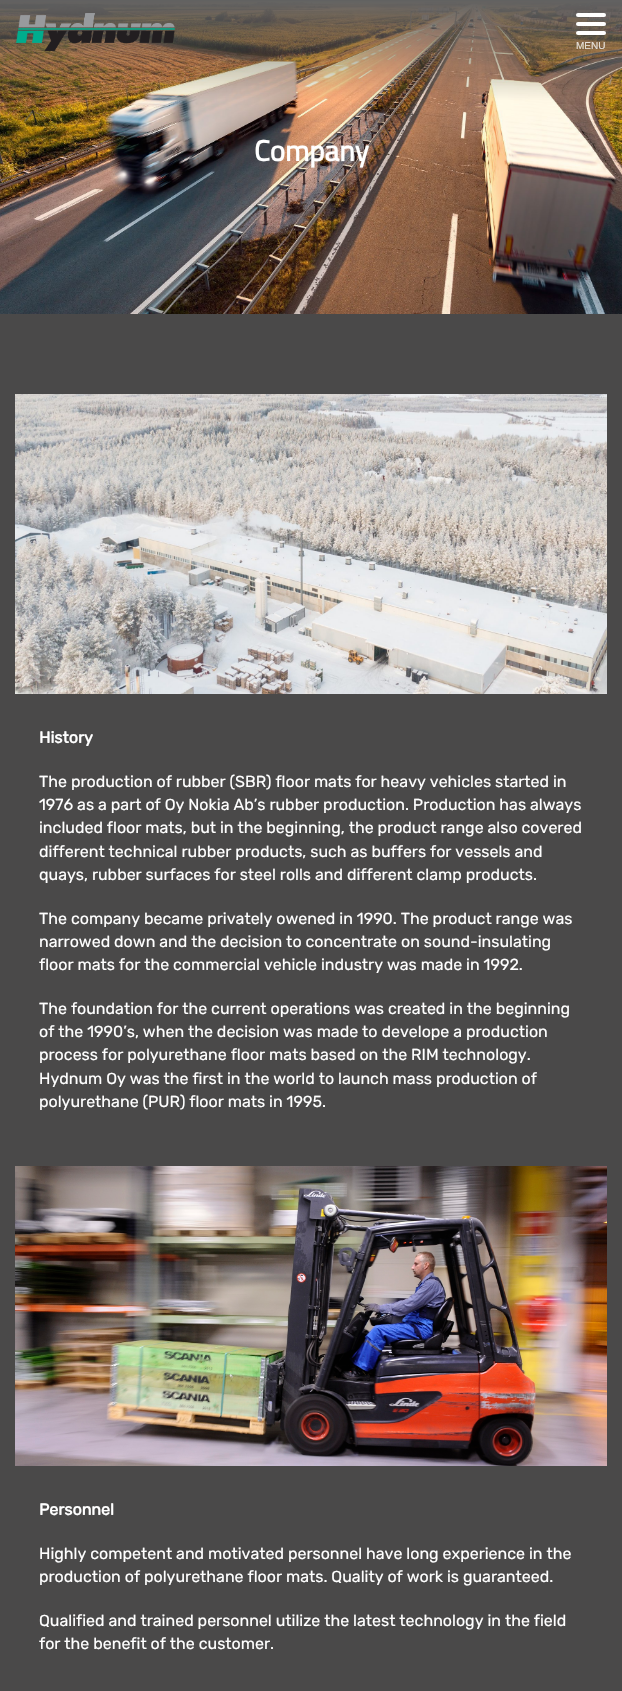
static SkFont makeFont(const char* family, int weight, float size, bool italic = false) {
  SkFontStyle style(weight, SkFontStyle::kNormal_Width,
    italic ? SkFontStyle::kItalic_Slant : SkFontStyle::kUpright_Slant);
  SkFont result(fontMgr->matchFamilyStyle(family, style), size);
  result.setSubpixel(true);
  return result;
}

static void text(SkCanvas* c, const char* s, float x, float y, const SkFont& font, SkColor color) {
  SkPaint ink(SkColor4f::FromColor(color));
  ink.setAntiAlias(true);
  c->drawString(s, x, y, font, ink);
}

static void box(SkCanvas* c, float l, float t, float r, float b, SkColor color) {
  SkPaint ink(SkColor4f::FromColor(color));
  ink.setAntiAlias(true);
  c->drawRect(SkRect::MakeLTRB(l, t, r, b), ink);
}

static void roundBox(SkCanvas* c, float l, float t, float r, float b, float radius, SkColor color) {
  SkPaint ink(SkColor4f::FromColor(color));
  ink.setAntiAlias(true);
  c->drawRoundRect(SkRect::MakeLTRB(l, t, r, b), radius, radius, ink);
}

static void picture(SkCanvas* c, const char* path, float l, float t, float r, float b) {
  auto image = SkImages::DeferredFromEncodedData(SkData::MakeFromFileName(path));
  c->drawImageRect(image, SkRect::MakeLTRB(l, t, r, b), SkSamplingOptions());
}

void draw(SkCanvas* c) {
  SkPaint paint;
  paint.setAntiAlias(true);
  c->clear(0xffffffff);
  picture(c, "img_02.png", 0, 0, 622, 314);
  picture(c, "img_01.png", 16, 13, 175, 51);
  roundBox(c, 576, 13, 606, 17, 2, 0xffffffff);
  roundBox(c, 576, 22, 606, 26, 2, 0xffffffff);
  roundBox(c, 576, 31, 606, 35, 2, 0xffffffff);
  SkFont face1 = makeFont("Liberation Sans", 400, 10);
  text(c, "MENU", 576, 49, face1, 0xffe7e1da);
  SkFont face2 = makeFont("Titillium Web", 700, 29);
  text(c, "Company", 254, 161, face2, 0xffffffff);
  box(c, 0, 314, 622, 1691, 0xff4a4949);
  picture(c, "img_03.png", 15, 394, 607, 694);
  SkFont face3 = makeFont("Rubik", 700, 16);
  text(c, "History", 39, 743, face3, 0xffffffff);
  SkFont face4 = makeFont("Rubik", 300, 16);
  text(c, "The production of rubber (SBR) floor mats for heavy vehicles started in", 39, 787, face4, 0xffffffff);
  text(c, "1976 as a part of Oy Nokia Ab’s rubber production. Production has always", 39, 810, face4, 0xffffffff);
  text(c, "included floor mats, but in the beginning, the product range also covered", 39, 833, face4, 0xffffffff);
  text(c, "different technical rubber products, such as buffers for vessels and", 39, 857, face4, 0xffffffff);
  text(c, "quays, rubber surfaces for steel rolls and different clamp products.", 39, 880, face4, 0xffffffff);
  text(c, "The company became privately owened in 1990. The product range was", 39, 924, face4, 0xffffffff);
  text(c, "narrowed down and the decision to concentrate on sound-insulating", 39, 947, face4, 0xffffffff);
  text(c, "floor mats for the commercial vehicle industry was made in 1992.", 39, 970, face4, 0xffffffff);
  text(c, "The foundation for the current operations was created in the beginning", 39, 1014, face4, 0xffffffff);
  text(c, "of the 1990’s, when the decision was made to develope a production", 39, 1037, face4, 0xffffffff);
  text(c, "process for polyurethane floor mats based on the RIM technology.", 39, 1060, face4, 0xffffffff);
  text(c, "Hydnum Oy was the first in the world to launch mass production of", 39, 1084, face4, 0xffffffff);
  text(c, "polyurethane (PUR) floor mats in 1995.", 39, 1107, face4, 0xffffffff);
  picture(c, "img_04.png", 15, 1166, 607, 1466);
  text(c, "Personnel", 39, 1515, face3, 0xffffffff);
  text(c, "Highly competent and motivated personnel have long experience in the", 39, 1559, face4, 0xffffffff);
  text(c, "production of polyurethane floor mats. Quality of work is guaranteed.", 39, 1582, face4, 0xffffffff);
  text(c, "Qualified and trained personnel utilize the latest technology in the field", 39, 1626, face4, 0xffffffff);
  text(c, "for the benefit of the customer.", 39, 1649, face4, 0xffffffff);
}
